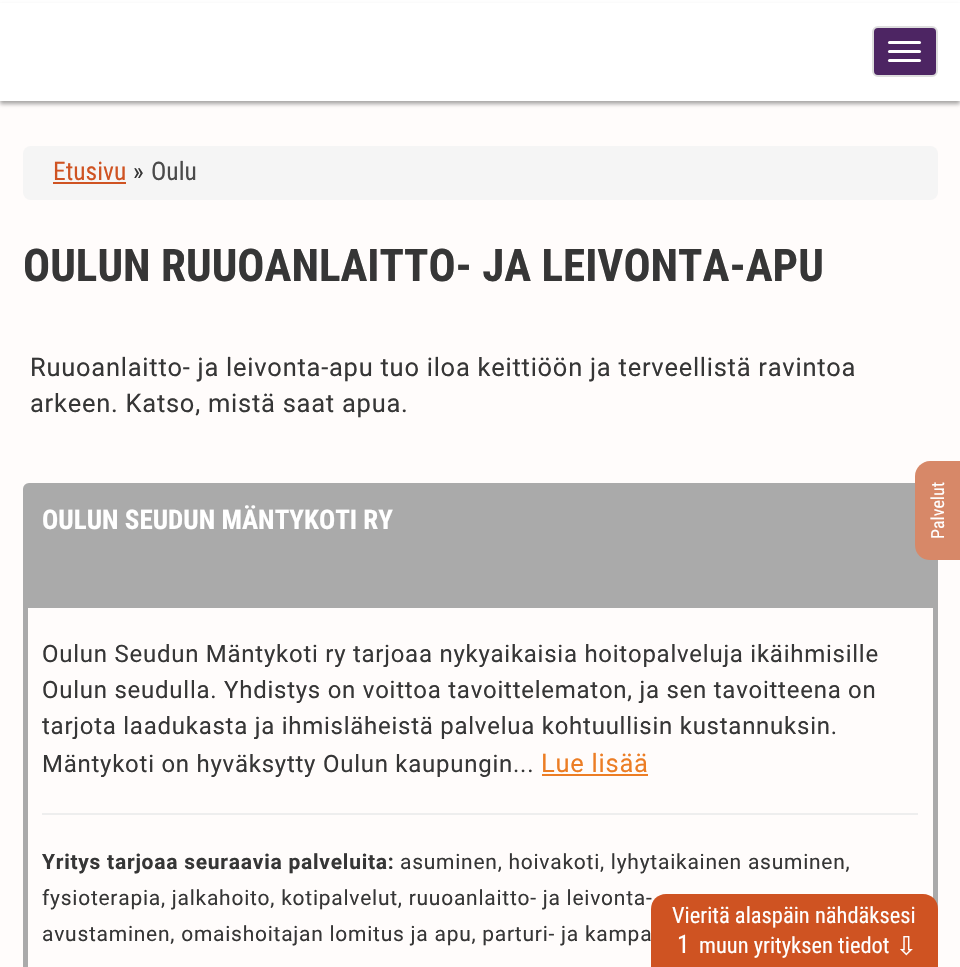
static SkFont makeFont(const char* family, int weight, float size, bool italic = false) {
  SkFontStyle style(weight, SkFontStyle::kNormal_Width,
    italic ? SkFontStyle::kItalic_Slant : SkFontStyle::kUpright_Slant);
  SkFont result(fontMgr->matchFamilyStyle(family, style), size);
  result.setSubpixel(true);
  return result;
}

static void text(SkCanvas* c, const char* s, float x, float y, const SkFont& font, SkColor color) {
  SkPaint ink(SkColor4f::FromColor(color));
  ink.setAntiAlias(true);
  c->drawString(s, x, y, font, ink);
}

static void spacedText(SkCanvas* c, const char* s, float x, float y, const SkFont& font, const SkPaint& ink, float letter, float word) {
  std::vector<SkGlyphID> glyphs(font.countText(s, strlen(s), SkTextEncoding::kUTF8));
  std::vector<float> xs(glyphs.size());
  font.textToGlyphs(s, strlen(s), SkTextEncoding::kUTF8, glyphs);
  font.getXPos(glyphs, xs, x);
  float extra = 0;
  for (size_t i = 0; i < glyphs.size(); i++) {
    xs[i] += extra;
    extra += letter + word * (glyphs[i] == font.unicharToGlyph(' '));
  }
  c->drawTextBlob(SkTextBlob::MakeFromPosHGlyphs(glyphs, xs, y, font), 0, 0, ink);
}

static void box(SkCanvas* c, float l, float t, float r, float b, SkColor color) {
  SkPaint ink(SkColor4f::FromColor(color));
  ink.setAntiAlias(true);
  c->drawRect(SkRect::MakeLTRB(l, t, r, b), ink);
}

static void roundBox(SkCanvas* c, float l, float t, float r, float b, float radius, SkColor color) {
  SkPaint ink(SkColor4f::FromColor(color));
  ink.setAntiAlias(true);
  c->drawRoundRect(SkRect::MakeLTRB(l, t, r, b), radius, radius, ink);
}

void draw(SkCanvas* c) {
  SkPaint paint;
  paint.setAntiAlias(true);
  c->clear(0xfffffcfb);
  box(c, 0, 0, 960, 3, 0xffffffff);
  paint.setColor(0x59000000);
  paint.setMaskFilter(SkMaskFilter::MakeBlur(kNormal_SkBlurStyle, 2));
  c->drawRect(SkRect::MakeLTRB(0, 6, 960, 104), paint);
  paint.setMaskFilter(nullptr);
  box(c, 0, 3, 960, 101, 0xffffffff);
  paint.setColor(0xff4d2563);
  c->drawRoundRect(SkRect::MakeLTRB(873, 27, 937, 76), 5, 5, paint);
  paint.setStyle(SkPaint::kStroke_Style);
  paint.setStrokeWidth(2);
  paint.setColor(0xffdddddd);
  c->drawRoundRect(SkRect::MakeLTRB(873, 27, 937, 76), 5, 5, paint);
  roundBox(c, 888, 41, 921, 44, 1.5f, 0xffffffff);
  roundBox(c, 888, 50, 921, 53, 1.5f, 0xffffffff);
  roundBox(c, 888, 59, 921, 62, 1.5f, 0xffffffff);
  roundBox(c, 23, 146, 938, 200, 8, 0xfff5f5f5);
  SkFont face1 = makeFont("Roboto Condensed", 400, 25.5f);
  text(c, "Etusivu", 53, 180, face1, 0xffcf5322);
  box(c, 53, 182, 126, 184, 0xffcf5322);
  text(c, "»", 133, 180, face1, 0xff363636);
  text(c, "Oulu", 151, 180, face1, 0xff4b4b4b);
  SkFont face2 = makeFont("Roboto Condensed", 700, 45);
  text(c, "OULUN RUUOANLAITTO- JA LEIVONTA-APU", 23, 281, face2, 0xff363636);
  SkFont face3 = makeFont("Roboto", 400, 25.5f);
  paint.setStyle(SkPaint::kFill_Style);
  paint.setColor(0xff363636);
  spacedText(c, "Ruuoanlaitto- ja leivonta-apu tuo iloa keittiöön ja terveellistä ravintoa", 30, 376, face3, paint, 0.75f, 0);
  spacedText(c, "arkeen. Katso, mistä saat apua.", 30, 412, face3, paint, 0.75f, 0);
  paint.setStyle(SkPaint::kStroke_Style);
  paint.setStrokeWidth(5);
  paint.setColor(0xffaaaaaa);
  c->drawRoundRect(SkRect::MakeLTRB(25.5f, 485.5f, 935.5f, 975.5f), 3.5f, 3.5f, paint);
  box(c, 28, 488, 933, 608, 0xffaaaaaa);
  SkFont face4 = makeFont("Roboto Condensed", 700, 27);
  text(c, "OULUN SEUDUN MÄNTYKOTI RY", 42, 529, face4, 0xffffffff);
  SkFont face5 = makeFont("Roboto", 400, 24);
  paint.setStyle(SkPaint::kFill_Style);
  paint.setColor(0xff363636);
  spacedText(c, "Oulun Seudun Mäntykoti ry tarjoaa nykyaikaisia hoitopalveluja ikäihmisille", 42, 662, face5, paint, 0.75f, 0);
  spacedText(c, "Oulun seudulla. Yhdistys on voittoa tavoittelematon, ja sen tavoitteena on", 42, 698, face5, paint, 0.75f, 0);
  spacedText(c, "tarjota laadukasta ja ihmisläheistä palvelua kohtuullisin kustannuksin.", 42, 734, face5, paint, 0.75f, 0);
  spacedText(c, "Mäntykoti on hyväksytty Oulun kaupungin...", 42, 772, face5, paint, 0.75f, 0);
  paint.setColor(0xffec7d24);
  spacedText(c, "Lue lisää", 541, 772, face3, paint, 0.75f, 0);
  box(c, 542, 774, 648, 776, 0xffec7d24);
  box(c, 42, 813, 918, 815, 0xffeeeeee);
  SkFont face6 = makeFont("Roboto", 700, 21);
  paint.setColor(0xff363636);
  spacedText(c, "Yritys tarjoaa seuraavia palveluita:", 42, 869, face6, paint, 0.75f, 0);
  SkFont face7 = makeFont("Roboto", 400, 21);
  spacedText(c, "asuminen, hoivakoti, lyhytaikainen asuminen,", 400, 869, face7, paint, 0.75f, 0);
  spacedText(c, "fysioterapia, jalkahoito, kotipalvelut, ruuoanlaitto- ja leivonta-", 42, 905, face7, paint, 0.75f, 0);
  spacedText(c, "avustaminen, omaishoitajan lomitus ja apu, parturi- ja kampa", 42, 941, face7, paint, 0.75f, 0);
  paint.setColor(0xffcf5322);
  c->drawPath(SkPathBuilder().moveTo(666, 894).lineTo(923, 894).cubicTo(931.5f, 894, 938, 900.5f, 938, 909).lineTo(938, 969).lineTo(651, 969).lineTo(651, 909).cubicTo(651, 900.5f, 657.5f, 894, 666, 894).close().detach(), paint);
  SkFont face8 = makeFont("Roboto Condensed", 400, 22.5f);
  text(c, "Vieritä alaspäin nähdäksesi", 672, 923, face8, 0xffffffff);
  text(c, "1", 677, 953, face1, 0xffffffff);
  text(c, "muun yrityksen tiedot", 699, 953, face8, 0xffffffff);
  SkFont face9 = makeFont("DejaVu Sans", 400, 25.5f);
  c->save();
  c->rotate(180, 917, 936);
  text(c, "⇧", 917, 936, face9, 0xffffffff);
  c->restore();
  paint.setColor(0xffd78868);
  c->drawPath(SkPathBuilder().moveTo(915, 545).lineTo(915, 476).cubicTo(915, 468, 922, 461, 930, 461).lineTo(960, 461).lineTo(960, 560).lineTo(930, 560).cubicTo(922, 560, 915, 554, 915, 545).close().detach(), paint);
  SkFont face10 = makeFont("Roboto Condensed", 400, 18);
  c->save();
  c->rotate(-90, 944, 539);
  text(c, "Palvelut", 944, 539, face10, 0xffffffff);
  c->restore();
}
